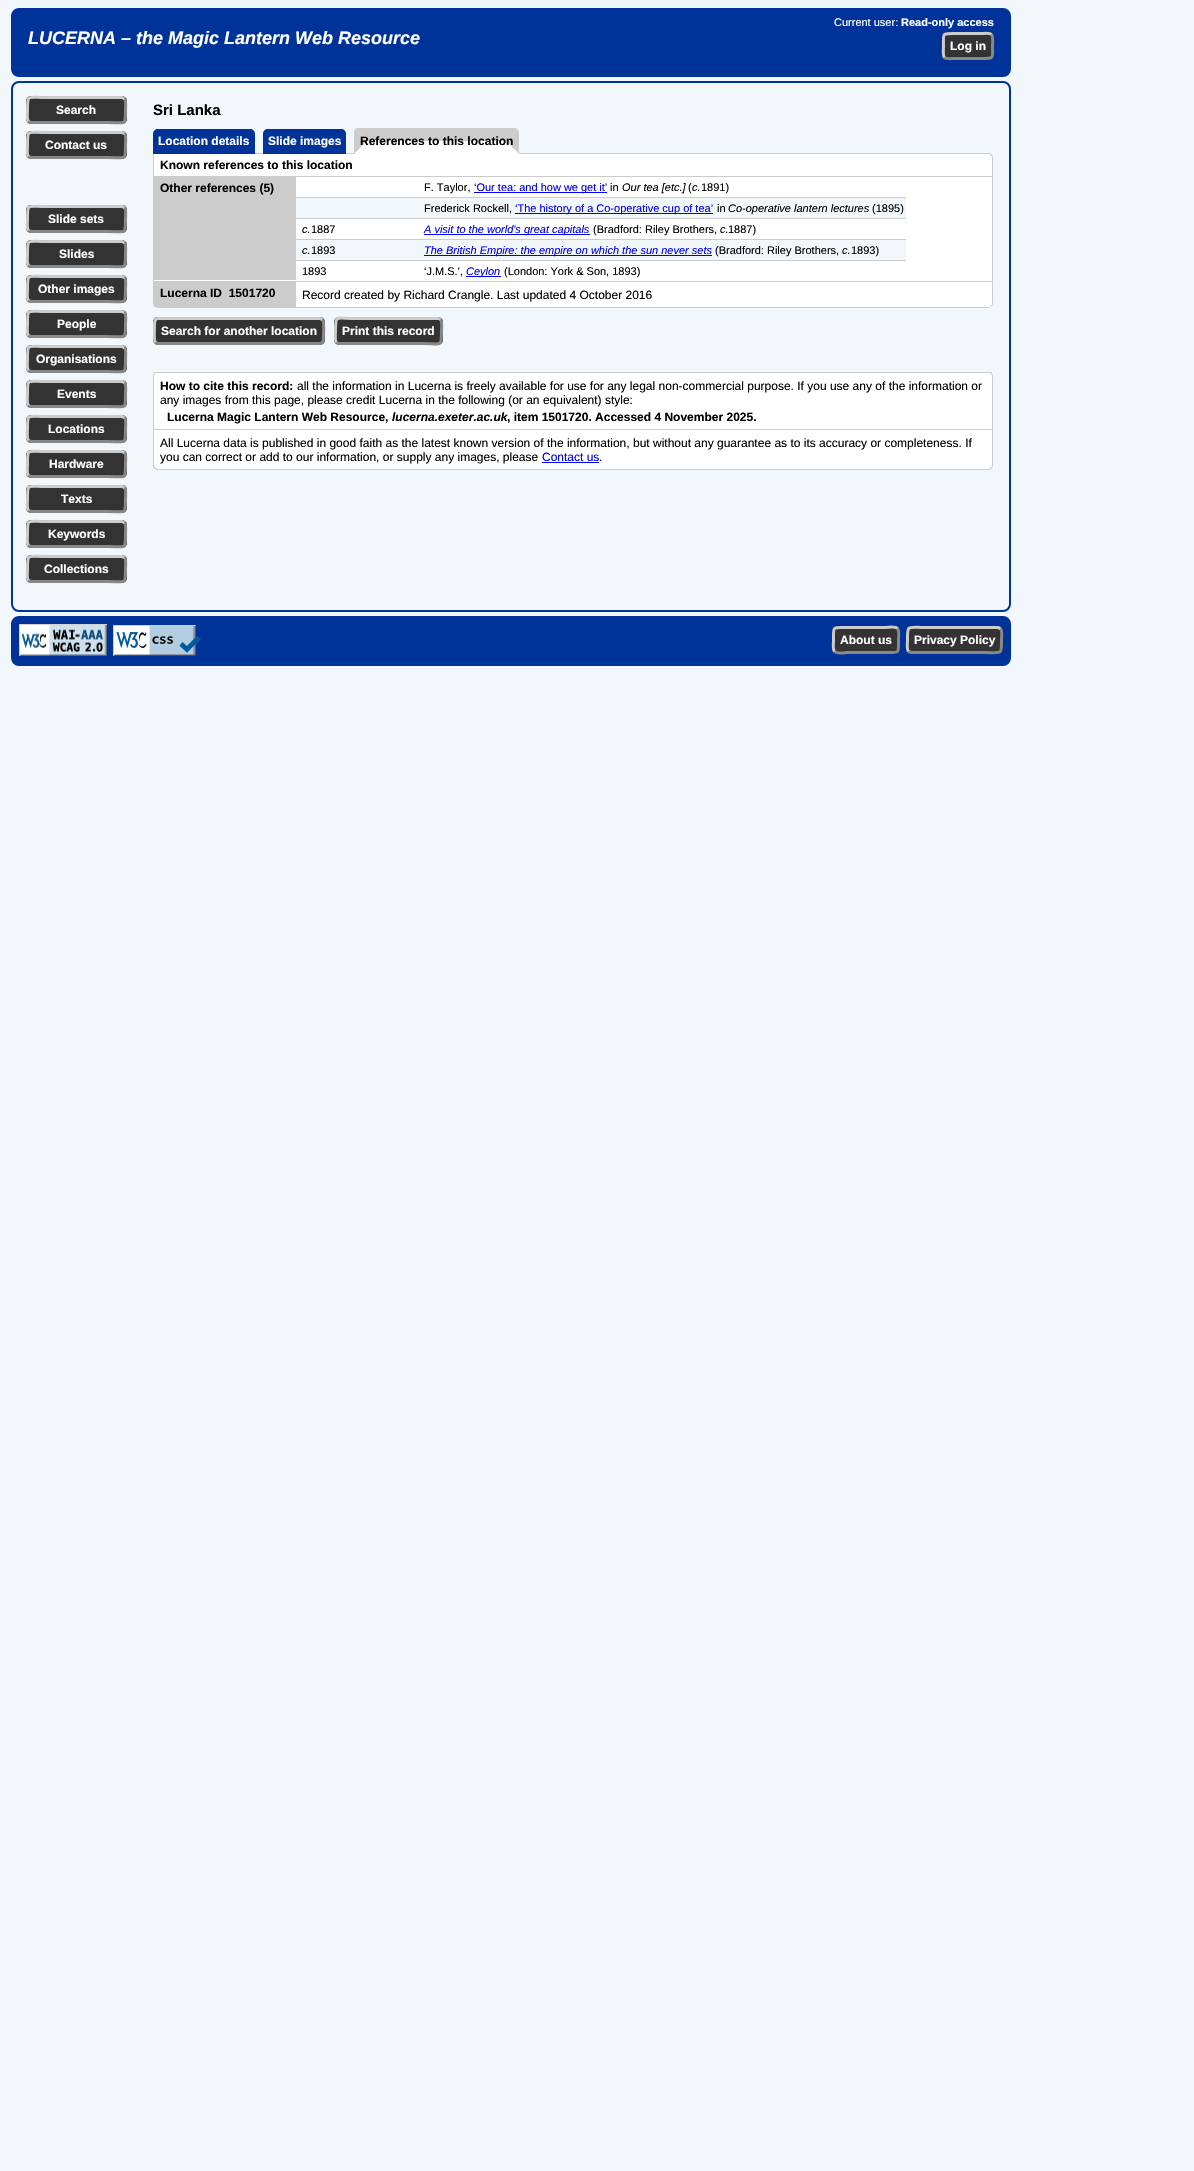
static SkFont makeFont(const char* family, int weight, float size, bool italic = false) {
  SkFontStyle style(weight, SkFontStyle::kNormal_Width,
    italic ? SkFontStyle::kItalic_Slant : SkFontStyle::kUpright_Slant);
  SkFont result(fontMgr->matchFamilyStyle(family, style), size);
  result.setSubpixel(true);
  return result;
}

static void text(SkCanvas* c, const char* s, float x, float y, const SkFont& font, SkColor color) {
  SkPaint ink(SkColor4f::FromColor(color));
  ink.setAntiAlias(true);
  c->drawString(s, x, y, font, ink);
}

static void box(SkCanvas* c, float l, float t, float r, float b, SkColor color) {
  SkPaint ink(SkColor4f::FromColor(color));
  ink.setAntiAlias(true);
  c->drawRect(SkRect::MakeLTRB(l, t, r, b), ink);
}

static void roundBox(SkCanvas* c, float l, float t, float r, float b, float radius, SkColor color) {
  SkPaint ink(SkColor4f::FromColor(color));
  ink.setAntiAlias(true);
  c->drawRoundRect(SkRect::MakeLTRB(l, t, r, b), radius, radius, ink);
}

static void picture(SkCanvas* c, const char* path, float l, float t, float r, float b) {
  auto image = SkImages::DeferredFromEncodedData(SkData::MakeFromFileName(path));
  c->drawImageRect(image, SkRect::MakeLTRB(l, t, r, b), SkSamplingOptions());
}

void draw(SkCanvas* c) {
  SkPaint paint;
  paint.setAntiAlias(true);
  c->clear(0xfff1f7fb);
  paint.setColor(0xff003399);
  c->drawRoundRect(SkRect::MakeLTRB(12, 9, 1010, 76), 7, 7, paint);
  paint.setStyle(SkPaint::kStroke_Style);
  paint.setStrokeWidth(2);
  c->drawRoundRect(SkRect::MakeLTRB(12, 9, 1010, 76), 7, 7, paint);
  SkFont face1 = makeFont("Liberation Sans", 700, 18, true);
  text(c, "LUCERNA – the Magic Lantern Web Resource", 28, 44, face1, 0xffffffff);
  SkFont face2 = makeFont("Liberation Sans", 400, 11);
  text(c, "Current user:", 834, 26, face2, 0xffffffff);
  SkFont face3 = makeFont("Liberation Sans", 700, 11);
  text(c, "Read-only access", 901, 26, face3, 0xffffffff);
  roundBox(c, 942, 32, 994, 60, 5, 0xff333333);
  paint.setStrokeWidth(3);
  paint.setColor(0xff888888);
  c->drawPath(SkPathBuilder().moveTo(991.5f, 34.5f).cubicTo(993.5f, 36.5f, 992.5f, 43.5f, 992.5f, 46).cubicTo(992.5f, 58.5f, 994.5f, 58.5f, 982, 58.5f).lineTo(954, 58.5f).cubicTo(952.5f, 58.5f, 946.5f, 59.5f, 944.5f, 57.5f).detach(), paint);
  paint.setColor(0xffcccccc);
  c->drawPath(SkPathBuilder().moveTo(944.5f, 57.5f).cubicTo(942.5f, 55.5f, 943.5f, 48.5f, 943.5f, 46).cubicTo(943.5f, 33.5f, 941.5f, 33.5f, 954, 33.5f).lineTo(982, 33.5f).cubicTo(983.5f, 33.5f, 989.5f, 32.5f, 991.5f, 34.5f).detach(), paint);
  SkFont face4 = makeFont("Liberation Sans", 700, 12);
  text(c, "Log in", 950, 50, face4, 0xffffffff);
  paint.setStrokeWidth(2);
  paint.setColor(0xff003399);
  c->drawRoundRect(SkRect::MakeLTRB(12, 82, 1010, 611), 7, 7, paint);
  roundBox(c, 26, 96, 127, 124, 5, 0xff333333);
  paint.setStrokeWidth(3);
  paint.setColor(0xff888888);
  c->drawPath(SkPathBuilder().moveTo(124.5f, 98.5f).cubicTo(126.5f, 100.5f, 125.5f, 107.5f, 125.5f, 110).cubicTo(125.5f, 126.5f, 126, 122.5f, 107, 122.5f).lineTo(31, 122.5f).lineTo(28.5f, 121.5f).detach(), paint);
  paint.setColor(0xffcccccc);
  c->drawPath(SkPathBuilder().moveTo(28.5f, 121.5f).cubicTo(26.5f, 119.5f, 27.5f, 112.5f, 27.5f, 110).cubicTo(27.5f, 93.5f, 27, 97.5f, 46, 97.5f).lineTo(122, 97.5f).lineTo(124.5f, 98.5f).detach(), paint);
  text(c, "Search", 56, 114, face4, 0xffffffff);
  roundBox(c, 26, 131, 127, 159, 5, 0xff333333);
  paint.setColor(0xff888888);
  c->drawPath(SkPathBuilder().moveTo(124.5f, 133.5f).cubicTo(126.5f, 135.5f, 125.5f, 142.5f, 125.5f, 145).cubicTo(125.5f, 161.5f, 126, 157.5f, 107, 157.5f).lineTo(31, 157.5f).lineTo(28.5f, 156.5f).detach(), paint);
  paint.setColor(0xffcccccc);
  c->drawPath(SkPathBuilder().moveTo(28.5f, 156.5f).cubicTo(26.5f, 154.5f, 27.5f, 147.5f, 27.5f, 145).cubicTo(27.5f, 128.5f, 27, 132.5f, 46, 132.5f).lineTo(122, 132.5f).lineTo(124.5f, 133.5f).detach(), paint);
  text(c, "Contact us", 45, 149, face4, 0xffffffff);
  roundBox(c, 26, 205, 127, 233, 5, 0xff333333);
  paint.setColor(0xff888888);
  c->drawPath(SkPathBuilder().moveTo(124.5f, 207.5f).cubicTo(126.5f, 209.5f, 125.5f, 216.5f, 125.5f, 219).cubicTo(125.5f, 235.5f, 126, 231.5f, 107, 231.5f).lineTo(31, 231.5f).lineTo(28.5f, 230.5f).detach(), paint);
  paint.setColor(0xffcccccc);
  c->drawPath(SkPathBuilder().moveTo(28.5f, 230.5f).cubicTo(26.5f, 228.5f, 27.5f, 221.5f, 27.5f, 219).cubicTo(27.5f, 202.5f, 27, 206.5f, 46, 206.5f).lineTo(122, 206.5f).lineTo(124.5f, 207.5f).detach(), paint);
  text(c, "Slide sets", 48, 223, face4, 0xffffffff);
  roundBox(c, 26, 240, 127, 268, 5, 0xff333333);
  paint.setColor(0xff888888);
  c->drawPath(SkPathBuilder().moveTo(124.5f, 242.5f).cubicTo(126.5f, 244.5f, 125.5f, 251.5f, 125.5f, 254).cubicTo(125.5f, 270.5f, 126, 266.5f, 107, 266.5f).lineTo(31, 266.5f).lineTo(28.5f, 265.5f).detach(), paint);
  paint.setColor(0xffcccccc);
  c->drawPath(SkPathBuilder().moveTo(28.5f, 265.5f).cubicTo(26.5f, 263.5f, 27.5f, 256.5f, 27.5f, 254).cubicTo(27.5f, 237.5f, 27, 241.5f, 46, 241.5f).lineTo(122, 241.5f).lineTo(124.5f, 242.5f).detach(), paint);
  text(c, "Slides", 59, 258, face4, 0xffffffff);
  roundBox(c, 26, 275, 127, 303, 5, 0xff333333);
  paint.setColor(0xff888888);
  c->drawPath(SkPathBuilder().moveTo(124.5f, 277.5f).cubicTo(126.5f, 279.5f, 125.5f, 286.5f, 125.5f, 289).cubicTo(125.5f, 305.5f, 126, 301.5f, 107, 301.5f).lineTo(31, 301.5f).lineTo(28.5f, 300.5f).detach(), paint);
  paint.setColor(0xffcccccc);
  c->drawPath(SkPathBuilder().moveTo(28.5f, 300.5f).cubicTo(26.5f, 298.5f, 27.5f, 291.5f, 27.5f, 289).cubicTo(27.5f, 272.5f, 27, 276.5f, 46, 276.5f).lineTo(122, 276.5f).lineTo(124.5f, 277.5f).detach(), paint);
  text(c, "Other images", 38, 293, face4, 0xffffffff);
  roundBox(c, 26, 310, 127, 338, 5, 0xff333333);
  paint.setColor(0xff888888);
  c->drawPath(SkPathBuilder().moveTo(124.5f, 312.5f).cubicTo(126.5f, 314.5f, 125.5f, 321.5f, 125.5f, 324).cubicTo(125.5f, 340.5f, 126, 336.5f, 107, 336.5f).lineTo(31, 336.5f).lineTo(28.5f, 335.5f).detach(), paint);
  paint.setColor(0xffcccccc);
  c->drawPath(SkPathBuilder().moveTo(28.5f, 335.5f).cubicTo(26.5f, 333.5f, 27.5f, 326.5f, 27.5f, 324).cubicTo(27.5f, 307.5f, 27, 311.5f, 46, 311.5f).lineTo(122, 311.5f).lineTo(124.5f, 312.5f).detach(), paint);
  text(c, "People", 57, 328, face4, 0xffffffff);
  roundBox(c, 26, 345, 127, 373, 5, 0xff333333);
  paint.setColor(0xff888888);
  c->drawPath(SkPathBuilder().moveTo(124.5f, 347.5f).cubicTo(126.5f, 349.5f, 125.5f, 356.5f, 125.5f, 359).cubicTo(125.5f, 375.5f, 126, 371.5f, 107, 371.5f).lineTo(31, 371.5f).lineTo(28.5f, 370.5f).detach(), paint);
  paint.setColor(0xffcccccc);
  c->drawPath(SkPathBuilder().moveTo(28.5f, 370.5f).cubicTo(26.5f, 368.5f, 27.5f, 361.5f, 27.5f, 359).cubicTo(27.5f, 342.5f, 27, 346.5f, 46, 346.5f).lineTo(122, 346.5f).lineTo(124.5f, 347.5f).detach(), paint);
  text(c, "Organisations", 36, 363, face4, 0xffffffff);
  roundBox(c, 26, 380, 127, 408, 5, 0xff333333);
  paint.setColor(0xff888888);
  c->drawPath(SkPathBuilder().moveTo(124.5f, 382.5f).cubicTo(126.5f, 384.5f, 125.5f, 391.5f, 125.5f, 394).cubicTo(125.5f, 410.5f, 126, 406.5f, 107, 406.5f).lineTo(31, 406.5f).lineTo(28.5f, 405.5f).detach(), paint);
  paint.setColor(0xffcccccc);
  c->drawPath(SkPathBuilder().moveTo(28.5f, 405.5f).cubicTo(26.5f, 403.5f, 27.5f, 396.5f, 27.5f, 394).cubicTo(27.5f, 377.5f, 27, 381.5f, 46, 381.5f).lineTo(122, 381.5f).lineTo(124.5f, 382.5f).detach(), paint);
  text(c, "Events", 57, 398, face4, 0xffffffff);
  roundBox(c, 26, 415, 127, 443, 5, 0xff333333);
  paint.setColor(0xff888888);
  c->drawPath(SkPathBuilder().moveTo(124.5f, 417.5f).cubicTo(126.5f, 419.5f, 125.5f, 426.5f, 125.5f, 429).cubicTo(125.5f, 445.5f, 126, 441.5f, 107, 441.5f).lineTo(31, 441.5f).lineTo(28.5f, 440.5f).detach(), paint);
  paint.setColor(0xffcccccc);
  c->drawPath(SkPathBuilder().moveTo(28.5f, 440.5f).cubicTo(26.5f, 438.5f, 27.5f, 431.5f, 27.5f, 429).cubicTo(27.5f, 412.5f, 27, 416.5f, 46, 416.5f).lineTo(122, 416.5f).lineTo(124.5f, 417.5f).detach(), paint);
  text(c, "Locations", 48, 433, face4, 0xffffffff);
  roundBox(c, 26, 450, 127, 478, 5, 0xff333333);
  paint.setColor(0xff888888);
  c->drawPath(SkPathBuilder().moveTo(124.5f, 452.5f).cubicTo(126.5f, 454.5f, 125.5f, 461.5f, 125.5f, 464).cubicTo(125.5f, 480.5f, 126, 476.5f, 107, 476.5f).lineTo(31, 476.5f).lineTo(28.5f, 475.5f).detach(), paint);
  paint.setColor(0xffcccccc);
  c->drawPath(SkPathBuilder().moveTo(28.5f, 475.5f).cubicTo(26.5f, 473.5f, 27.5f, 466.5f, 27.5f, 464).cubicTo(27.5f, 447.5f, 27, 451.5f, 46, 451.5f).lineTo(122, 451.5f).lineTo(124.5f, 452.5f).detach(), paint);
  text(c, "Hardware", 49, 468, face4, 0xffffffff);
  roundBox(c, 26, 485, 127, 513, 5, 0xff333333);
  paint.setColor(0xff888888);
  c->drawPath(SkPathBuilder().moveTo(124.5f, 487.5f).cubicTo(126.5f, 489.5f, 125.5f, 496.5f, 125.5f, 499).cubicTo(125.5f, 515.5f, 126, 511.5f, 107, 511.5f).lineTo(31, 511.5f).lineTo(28.5f, 510.5f).detach(), paint);
  paint.setColor(0xffcccccc);
  c->drawPath(SkPathBuilder().moveTo(28.5f, 510.5f).cubicTo(26.5f, 508.5f, 27.5f, 501.5f, 27.5f, 499).cubicTo(27.5f, 482.5f, 27, 486.5f, 46, 486.5f).lineTo(122, 486.5f).lineTo(124.5f, 487.5f).detach(), paint);
  text(c, "Texts", 61, 503, face4, 0xffffffff);
  roundBox(c, 26, 520, 127, 548, 5, 0xff333333);
  paint.setColor(0xff888888);
  c->drawPath(SkPathBuilder().moveTo(124.5f, 522.5f).cubicTo(126.5f, 524.5f, 125.5f, 531.5f, 125.5f, 534).cubicTo(125.5f, 550.5f, 126, 546.5f, 107, 546.5f).lineTo(31, 546.5f).lineTo(28.5f, 545.5f).detach(), paint);
  paint.setColor(0xffcccccc);
  c->drawPath(SkPathBuilder().moveTo(28.5f, 545.5f).cubicTo(26.5f, 543.5f, 27.5f, 536.5f, 27.5f, 534).cubicTo(27.5f, 517.5f, 27, 521.5f, 46, 521.5f).lineTo(122, 521.5f).lineTo(124.5f, 522.5f).detach(), paint);
  text(c, "Keywords", 48, 538, face4, 0xffffffff);
  roundBox(c, 26, 555, 127, 583, 5, 0xff333333);
  paint.setColor(0xff888888);
  c->drawPath(SkPathBuilder().moveTo(124.5f, 557.5f).cubicTo(126.5f, 559.5f, 125.5f, 566.5f, 125.5f, 569).cubicTo(125.5f, 585.5f, 126, 581.5f, 107, 581.5f).lineTo(31, 581.5f).lineTo(28.5f, 580.5f).detach(), paint);
  paint.setColor(0xffcccccc);
  c->drawPath(SkPathBuilder().moveTo(28.5f, 580.5f).cubicTo(26.5f, 578.5f, 27.5f, 571.5f, 27.5f, 569).cubicTo(27.5f, 552.5f, 27, 556.5f, 46, 556.5f).lineTo(122, 556.5f).lineTo(124.5f, 557.5f).detach(), paint);
  text(c, "Collections", 44, 573, face4, 0xffffffff);
  SkFont face5 = makeFont("Liberation Sans", 700, 15);
  text(c, "Sri Lanka", 153, 115, face5, 0xff000000);
  paint.setStyle(SkPaint::kFill_Style);
  paint.setColor(0xffffffff);
  c->drawPath(SkPathBuilder().moveTo(153, 153).lineTo(988, 153).cubicTo(991, 153, 993, 155, 993, 158).lineTo(993, 176).lineTo(153, 176).close().detach(), paint);
  paint.setColor(0xffcccccc);
  c->drawPath(SkPathBuilder(SkPathFillType::kEvenOdd).moveTo(153, 153).lineTo(988, 153).cubicTo(991, 153, 993, 155, 993, 158).lineTo(993, 176).lineTo(153, 176).close().moveTo(154, 154).lineTo(988, 154).cubicTo(990, 154, 992, 156, 992, 158).lineTo(992, 176).lineTo(154, 176).close().detach(), paint);
  paint.setColor(0xff003399);
  c->drawPath(SkPathBuilder().moveTo(158, 129).lineTo(250, 129).cubicTo(253, 129, 255, 131, 255, 134).lineTo(255, 154).lineTo(153, 154).lineTo(153, 134).cubicTo(153, 131, 155, 129, 158, 129).close().detach(), paint);
  text(c, "Location details", 158, 145, face4, 0xffffffff);
  c->drawPath(SkPathBuilder().moveTo(268, 129).lineTo(341, 129).cubicTo(344, 129, 346, 131, 346, 134).lineTo(346, 154).lineTo(263, 154).lineTo(263, 134).cubicTo(263, 131, 265, 129, 268, 129).close().detach(), paint);
  text(c, "Slide images", 268, 145, face4, 0xffffffff);
  paint.setColor(0xffcccccc);
  c->drawPath(SkPathBuilder().moveTo(359, 128).lineTo(515, 128).lineTo(518, 129).lineTo(506, 141).lineTo(367, 141).lineTo(355, 129).cubicTo(356, 128, 358, 128, 359, 128).close().detach(), paint);
  c->drawPath(SkPathBuilder().moveTo(517.5f, 129.5f).lineTo(506, 141).lineTo(519, 154).lineTo(519, 133).cubicTo(519, 131.5f, 518.5f, 130, 517.5f, 129.5f).close().detach(), paint);
  paint.setColor(0xffffffff);
  c->drawPath(SkPathBuilder().moveTo(519, 154).lineTo(506, 141).lineTo(367, 141).lineTo(354, 154).close().detach(), paint);
  paint.setColor(0xffcccccc);
  c->drawPath(SkPathBuilder().moveTo(354, 154).lineTo(354, 133).cubicTo(354, 131.5f, 354.5f, 130, 355.5f, 129.5f).lineTo(367, 141).close().detach(), paint);
  text(c, "References to this location", 360, 145, face4, 0xff000000);
  text(c, "Known references to this location", 160, 169, face4, 0xff000000);
  box(c, 296, 177, 992, 281, 0xffffffff);
  box(c, 153, 176, 993, 177, 0xffcccccc);
  box(c, 992, 176, 993, 281, 0xffcccccc);
  box(c, 153, 176, 154, 281, 0xffcccccc);
  box(c, 154, 177, 296, 280, 0xffcccccc);
  box(c, 154, 280, 296, 281, 0xffffffff);
  text(c, "Other references (5)", 160, 192, face4, 0xff000000);
  text(c, "F. Taylor,", 424, 191, face2, 0xff000000);
  box(c, 474, 192, 607, 193, 0xff0000ee);
  text(c, "‘Our tea: and how we get it’", 474, 191, face2, 0xff0000ee);
  text(c, "in", 610, 191, face2, 0xff000000);
  SkFont face6 = makeFont("Liberation Sans", 400, 11, true);
  text(c, "Our tea [etc.]", 622, 191, face6, 0xff000000);
  text(c, "(", 688, 191, face2, 0xff000000);
  text(c, "c.", 692, 191, face6, 0xff000000);
  text(c, "1891)", 701, 191, face2, 0xff000000);
  box(c, 296, 198, 906, 218, 0xfff1f7fb);
  box(c, 296, 197, 906, 198, 0xffcccccc);
  text(c, "Frederick Rockell,", 424, 212, face2, 0xff000000);
  box(c, 515, 213, 713, 214, 0xff0000ee);
  text(c, "‘The history of a Co-operative cup of tea’", 515, 212, face2, 0xff0000ee);
  text(c, "in", 717, 212, face2, 0xff000000);
  text(c, "Co-operative lantern lectures", 728, 212, face6, 0xff000000);
  text(c, "(1895)", 872, 212, face2, 0xff000000);
  box(c, 296, 218, 906, 219, 0xffcccccc);
  text(c, "c.", 302, 233, face6, 0xff000000);
  text(c, "1887", 311, 233, face2, 0xff000000);
  box(c, 424, 234, 590, 235, 0xff0000ee);
  text(c, "A visit to the world's great capitals", 424, 233, face6, 0xff0000ee);
  text(c, "(Bradford: Riley Brothers,", 593, 233, face2, 0xff000000);
  text(c, "c.", 720, 233, face6, 0xff000000);
  text(c, "1887)", 728, 233, face2, 0xff000000);
  box(c, 296, 240, 906, 260, 0xfff1f7fb);
  box(c, 296, 239, 906, 240, 0xffcccccc);
  text(c, "c.", 302, 254, face6, 0xff000000);
  text(c, "1893", 311, 254, face2, 0xff000000);
  box(c, 424, 255, 712, 256, 0xff0000ee);
  text(c, "The British Empire: the empire on which the sun never sets", 424, 254, face6, 0xff0000ee);
  text(c, "(Bradford: Riley Brothers,", 715, 254, face2, 0xff000000);
  text(c, "c.", 842, 254, face6, 0xff000000);
  text(c, "1893)", 851, 254, face2, 0xff000000);
  box(c, 296, 260, 906, 261, 0xffcccccc);
  text(c, "1893", 302, 275, face2, 0xff000000);
  text(c, "‘J.M.S.’,", 424, 275, face2, 0xff000000);
  box(c, 466, 276, 501, 277, 0xff0000ee);
  text(c, "Ceylon", 466, 275, face6, 0xff0000ee);
  text(c, "(London: York & Son, 1893)", 504, 275, face2, 0xff000000);
  paint.setColor(0xffffffff);
  c->drawPath(SkPathBuilder().moveTo(153.5f, 281.5f).lineTo(992.5f, 281.5f).lineTo(992.5f, 303).cubicTo(992.5f, 305.5f, 990.5f, 307.5f, 988, 307.5f).lineTo(158, 307.5f).cubicTo(155.5f, 307.5f, 153.5f, 305.5f, 153.5f, 303).close().detach(), paint);
  paint.setStyle(SkPaint::kStroke_Style);
  paint.setStrokeWidth(1);
  paint.setColor(0xffcccccc);
  c->drawPath(SkPathBuilder().moveTo(153.5f, 281.5f).lineTo(992.5f, 281.5f).lineTo(992.5f, 303).cubicTo(992.5f, 305.5f, 990.5f, 307.5f, 988, 307.5f).lineTo(158, 307.5f).cubicTo(155.5f, 307.5f, 153.5f, 305.5f, 153.5f, 303).close().detach(), paint);
  box(c, 154, 282, 296, 307, 0xffcccccc);
  text(c, "Lucerna ID  1501720", 160, 297, face4, 0xff000000);
  SkFont face7 = makeFont("Liberation Sans", 400, 12);
  text(c, "Record created by Richard Crangle. Last updated 4 October 2016", 302, 299, face7, 0xff000000);
  roundBox(c, 153, 317, 325, 345, 5, 0xff333333);
  paint.setStrokeWidth(3);
  paint.setColor(0xff888888);
  c->drawPath(SkPathBuilder().moveTo(322.5f, 319.5f).cubicTo(324.5f, 321.5f, 323.5f, 333.5f, 323.5f, 337).cubicTo(323.5f, 339.5f, 323.5f, 343.5f, 320, 343.5f).lineTo(158, 343.5f).lineTo(155.5f, 342.5f).detach(), paint);
  c->save();
  c->clipRect(SkRect::MakeLTRB(153, 308, 997, 358));
  paint.setColor(0xffcccccc);
  c->drawPath(SkPathBuilder().moveTo(155.5f, 342.5f).cubicTo(153.5f, 340.5f, 154.5f, 328.5f, 154.5f, 325).cubicTo(154.5f, 322.5f, 154.5f, 318.5f, 158, 318.5f).lineTo(320, 318.5f).lineTo(322.5f, 319.5f).detach(), paint);
  c->restore();
  text(c, "Search for another location", 161, 335, face4, 0xffffffff);
  roundBox(c, 334, 317, 443, 345, 5, 0xff333333);
  paint.setColor(0xff888888);
  c->drawPath(SkPathBuilder().moveTo(440.5f, 319.5f).cubicTo(442.5f, 321.5f, 441.5f, 328.5f, 441.5f, 331).cubicTo(441.5f, 348, 441.5f, 343.5f, 421.5f, 343.5f).lineTo(338.5f, 343.5f).lineTo(336.5f, 342.5f).detach(), paint);
  paint.setColor(0xffcccccc);
  c->drawPath(SkPathBuilder().moveTo(336.5f, 342.5f).cubicTo(334.5f, 340.5f, 335.5f, 333.5f, 335.5f, 331).cubicTo(335.5f, 314, 335.5f, 318.5f, 355.5f, 318.5f).lineTo(438.5f, 318.5f).lineTo(440.5f, 319.5f).detach(), paint);
  text(c, "Print this record", 342, 335, face4, 0xffffffff);
  roundBox(c, 153, 372, 993, 470, 5, 0xffffffff);
  paint.setStyle(SkPaint::kFill_Style);
  c->drawPath(SkPathBuilder(SkPathFillType::kEvenOdd).moveTo(158, 372).lineTo(988, 372).cubicTo(991, 372, 993, 374, 993, 377).lineTo(993, 465).cubicTo(993, 468, 991, 470, 988, 470).lineTo(158, 470).cubicTo(155, 470, 153, 468, 153, 465).lineTo(153, 377).cubicTo(153, 374, 155, 372, 158, 372).close().moveTo(158, 372).lineTo(988, 372).cubicTo(990, 372, 992, 374, 992, 377).lineTo(992, 465).cubicTo(992, 467, 990, 469, 988, 469).lineTo(158, 469).cubicTo(156, 469, 154, 467, 154, 465).lineTo(154, 377).cubicTo(154, 374, 156, 372, 158, 372).close().detach(), paint);
  box(c, 154, 372, 992, 373, 0xffcccccc);
  text(c, "How to cite this record:", 160, 390, face4, 0xff000000);
  text(c, "all the information in Lucerna is freely available for use for any legal non-commercial purpose. If you use any of the information or", 297, 390, face7, 0xff000000);
  text(c, "any images from this page, please credit Lucerna in the following (or an equivalent) style:", 160, 404, face7, 0xff000000);
  text(c, "Lucerna Magic Lantern Web Resource,", 167, 421, face4, 0xff000000);
  SkFont face8 = makeFont("Liberation Sans", 700, 12, true);
  text(c, "lucerna.exeter.ac.uk", 392, 421, face8, 0xff000000);
  text(c, ", item 1501720. Accessed 4 November 2025.", 507, 421, face4, 0xff000000);
  box(c, 154, 429, 992, 430, 0xffcccccc);
  text(c, "All Lucerna data is published in good faith as the latest known version of the information, but without any guarantee as to its accuracy or completeness. If", 160, 447, face7, 0xff000000);
  text(c, "you can correct or add to our information, or supply any images, please", 160, 461, face7, 0xff000000);
  text(c, "Contact us", 542, 461, face7, 0xff0000ee);
  box(c, 542, 462, 599, 463, 0xff0000ee);
  text(c, ".", 599, 461, face7, 0xff000000);
  paint.setColor(0xff003399);
  c->drawRoundRect(SkRect::MakeLTRB(12, 617, 1010, 665), 7, 7, paint);
  paint.setStyle(SkPaint::kStroke_Style);
  paint.setStrokeWidth(2);
  c->drawRoundRect(SkRect::MakeLTRB(12, 617, 1010, 665), 7, 7, paint);
  picture(c, "img_01.png", 19, 624, 107, 656);
  picture(c, "img_02.png", 113, 625, 201, 656);
  roundBox(c, 832, 626, 900, 654, 5, 0xff333333);
  paint.setStrokeWidth(3);
  paint.setColor(0xff888888);
  c->drawPath(SkPathBuilder().moveTo(897.5f, 628.5f).cubicTo(899.5f, 630.5f, 898.5f, 637.5f, 898.5f, 640).cubicTo(898.5f, 654, 900, 652.5f, 885.5f, 652.5f).lineTo(846.5f, 652.5f).cubicTo(846.5f, 652.5f, 837, 654, 834.5f, 651.5f).detach(), paint);
  paint.setColor(0xffcccccc);
  c->drawPath(SkPathBuilder().moveTo(834.5f, 651.5f).cubicTo(832.5f, 649.5f, 833.5f, 642.5f, 833.5f, 640).cubicTo(833.5f, 626, 832, 627.5f, 846.5f, 627.5f).lineTo(885.5f, 627.5f).cubicTo(885.5f, 627.5f, 895, 626, 897.5f, 628.5f).detach(), paint);
  text(c, "About us", 840, 644, face4, 0xffffffff);
  roundBox(c, 906, 626, 1003, 654, 5, 0xff333333);
  paint.setColor(0xff888888);
  c->drawPath(SkPathBuilder().moveTo(1000.5f, 628.5f).cubicTo(1002.5f, 630.5f, 1001.5f, 637.5f, 1001.5f, 640).cubicTo(1001.5f, 656, 1002, 652.5f, 983.5f, 652.5f).lineTo(911, 652.5f).lineTo(908.5f, 651.5f).detach(), paint);
  paint.setColor(0xffcccccc);
  c->drawPath(SkPathBuilder().moveTo(908.5f, 651.5f).cubicTo(906.5f, 649.5f, 907.5f, 642.5f, 907.5f, 640).cubicTo(907.5f, 624, 907, 627.5f, 925.5f, 627.5f).lineTo(998, 627.5f).lineTo(1000.5f, 628.5f).detach(), paint);
  text(c, "Privacy Policy", 914, 644, face4, 0xffffffff);
}
